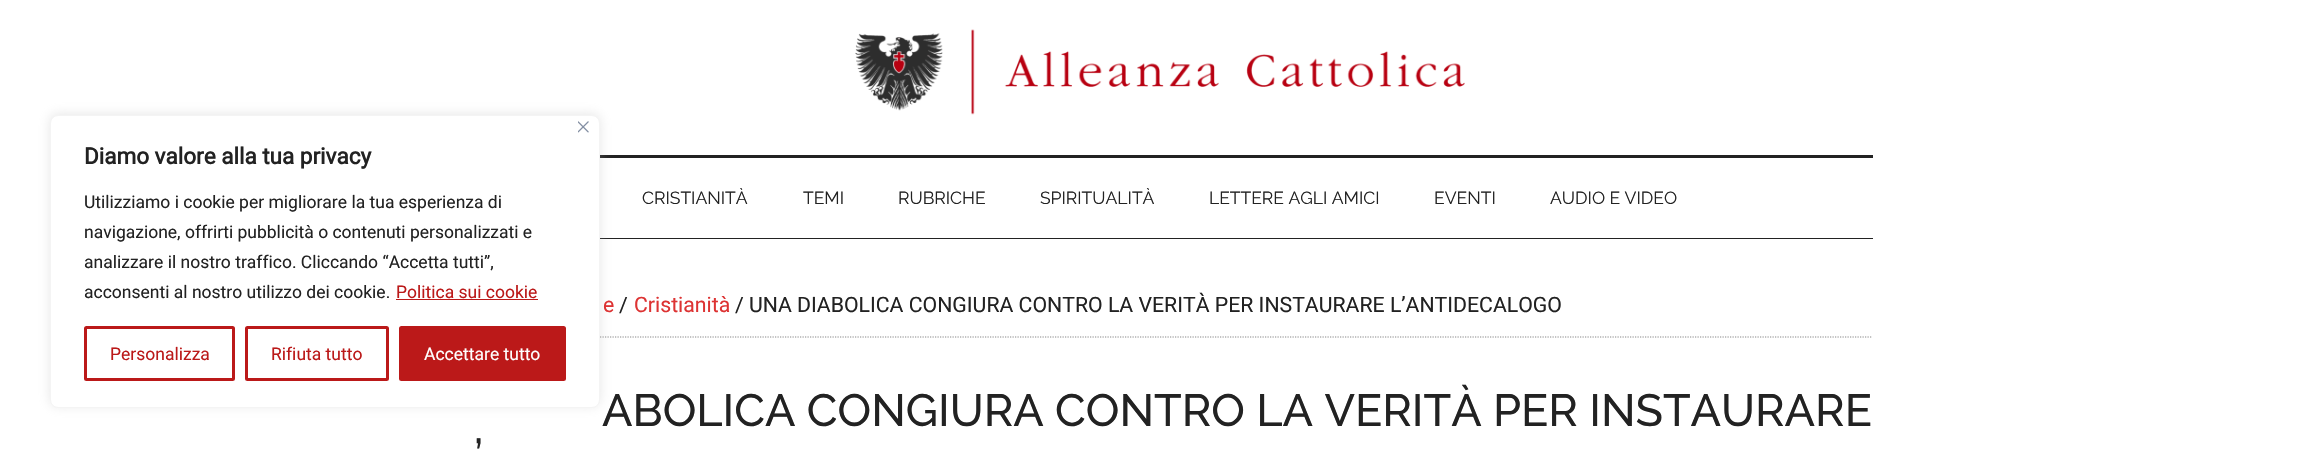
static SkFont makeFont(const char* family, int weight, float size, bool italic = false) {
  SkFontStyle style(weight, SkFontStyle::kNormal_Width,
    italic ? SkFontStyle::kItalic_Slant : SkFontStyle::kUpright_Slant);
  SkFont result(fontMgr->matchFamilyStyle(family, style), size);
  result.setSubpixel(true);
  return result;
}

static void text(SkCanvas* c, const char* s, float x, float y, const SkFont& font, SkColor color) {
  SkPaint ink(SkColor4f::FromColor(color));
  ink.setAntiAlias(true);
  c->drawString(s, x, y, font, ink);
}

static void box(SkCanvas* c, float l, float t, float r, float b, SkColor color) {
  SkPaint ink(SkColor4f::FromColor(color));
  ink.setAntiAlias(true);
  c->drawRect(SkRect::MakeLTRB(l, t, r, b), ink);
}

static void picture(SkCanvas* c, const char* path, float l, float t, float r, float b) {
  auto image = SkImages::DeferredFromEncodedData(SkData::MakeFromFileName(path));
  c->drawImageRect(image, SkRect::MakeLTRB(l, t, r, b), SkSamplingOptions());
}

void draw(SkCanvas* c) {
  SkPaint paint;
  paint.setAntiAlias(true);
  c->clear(0xffffffff);
  box(c, 600, 155, 1873, 158, 0xff222222);
  box(c, 600, 238, 1873, 239, 0xff222222);
  paint.setStyle(SkPaint::kStroke_Style);
  paint.setStrokeWidth(1.2f);
  paint.setColor(0xff888888);
  paint.setPathEffect(SkDashPathEffect::Make({{1.25f, 1.25f}}, 0));
  c->drawPath(SkPathBuilder().moveTo(447.5f, 337).lineTo(1872.5f, 337).detach(), paint);
  paint.setPathEffect(nullptr);
  paint.setStyle(SkPaint::kFill_Style);
  paint.setColor(0x4dacabab);
  paint.setMaskFilter(SkMaskFilter::MakeBlur(kNormal_SkBlurStyle, 6));
  c->drawRoundRect(SkRect::MakeLTRB(50, 114, 600, 406), 8, 8, paint);
  paint.setMaskFilter(nullptr);
  paint.setColor(0xffffffff);
  c->drawRoundRect(SkRect::MakeLTRB(50.5f, 115.5f, 599.5f, 407.5f), 7.5f, 7.5f, paint);
  paint.setStyle(SkPaint::kStroke_Style);
  paint.setStrokeWidth(1);
  paint.setColor(0xfff4f4f4);
  c->drawRoundRect(SkRect::MakeLTRB(50.5f, 115.5f, 599.5f, 407.5f), 7.5f, 7.5f, paint);
  picture(c, "img_01.png", 578, 121, 589, 133);
  SkFont face1 = makeFont("Roboto", 700, 22.5f);
  text(c, "Diamo valore alla tua privacy", 84, 164, face1, 0xff222222);
  SkFont face2 = makeFont("Roboto", 400, 17.5f);
  text(c, "Utilizziamo i cookie per migliorare la tua esperienza di", 84, 208, face2, 0xff222222);
  text(c, "navigazione, offrirti pubblicità o contenuti personalizzati e", 84, 238, face2, 0xff222222);
  text(c, "analizzare il nostro traffico. Cliccando “Accetta tutti”,", 84, 268, face2, 0xff222222);
  text(c, "acconsenti al nostro utilizzo dei cookie.", 84, 298, face2, 0xff222222);
  text(c, "Politica sui cookie", 396, 298, face2, 0xffbb1919);
  box(c, 396, 299, 538, 300, 0xffbb1919);
  paint.setStrokeWidth(3);
  paint.setColor(0xffbb1919);
  c->drawRoundRect(SkRect::MakeLTRB(85.5f, 327.5f, 233.5f, 379.5f), 1, 1, paint);
  text(c, "Personalizza", 110, 360, face2, 0xffbb1919);
  c->drawRoundRect(SkRect::MakeLTRB(246.5f, 327.5f, 387.5f, 379.5f), 1, 1, paint);
  text(c, "Rifiuta tutto", 271, 360, face2, 0xffbb1919);
  paint.setStyle(SkPaint::kFill_Style);
  c->drawRoundRect(SkRect::MakeLTRB(400.5f, 327.5f, 564.5f, 379.5f), 1, 1, paint);
  paint.setStyle(SkPaint::kStroke_Style);
  c->drawRoundRect(SkRect::MakeLTRB(400.5f, 327.5f, 564.5f, 379.5f), 1, 1, paint);
  text(c, "Accettare tutto", 424, 360, face2, 0xffffffff);
  picture(c, "img_02.png", 855, 29, 1465, 115);
  SkFont face3 = makeFont("Raleway", 400, 17.5f);
  text(c, "CRISTIANITÀ", 642, 204, face3, 0xff222222);
  text(c, "TEMI", 803, 204, face3, 0xff222222);
  text(c, "RUBRICHE", 898, 204, face3, 0xff222222);
  text(c, "SPIRITUALITÀ", 1040, 204, face3, 0xff222222);
  text(c, "LETTERE AGLI AMICI", 1209, 204, face3, 0xff222222);
  text(c, "EVENTI", 1434, 204, face3, 0xff222222);
  text(c, "AUDIO E VIDEO", 1550, 204, face3, 0xff222222);
  SkFont face4 = makeFont("Roboto", 400, 21.25f);
  text(c, "e", 603, 312, face4, 0xffdd3333);
  text(c, "/", 619, 312, face4, 0xff222222);
  text(c, "Cristianità", 634, 312, face4, 0xffdd3333);
  text(c, "/ UNA DIABOLICA CONGIURA CONTRO LA VERITÀ PER INSTAURARE L’ANTIDECALOGO", 735, 312, face4, 0xff222222);
  SkFont face5 = makeFont("Raleway", 500, 45);
  text(c, "ABOLICA CONGIURA CONTRO LA VERITÀ PER INSTAURARE", 602, 426, face5, 0xff222222);
  text(c, "’", 474, 471, face5, 0xff222222);
}
